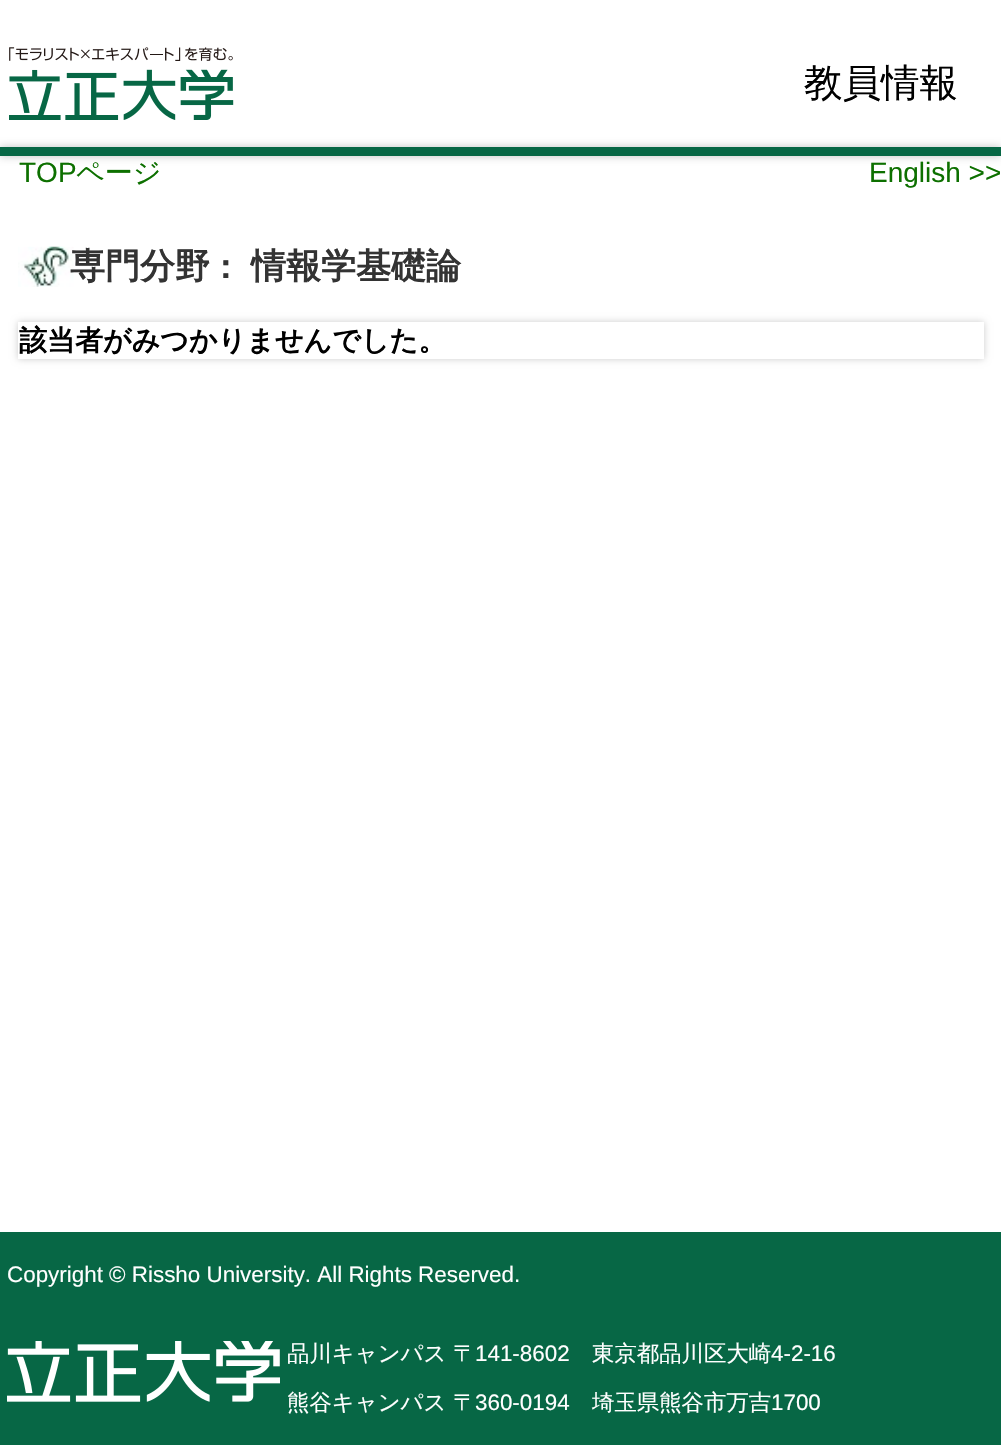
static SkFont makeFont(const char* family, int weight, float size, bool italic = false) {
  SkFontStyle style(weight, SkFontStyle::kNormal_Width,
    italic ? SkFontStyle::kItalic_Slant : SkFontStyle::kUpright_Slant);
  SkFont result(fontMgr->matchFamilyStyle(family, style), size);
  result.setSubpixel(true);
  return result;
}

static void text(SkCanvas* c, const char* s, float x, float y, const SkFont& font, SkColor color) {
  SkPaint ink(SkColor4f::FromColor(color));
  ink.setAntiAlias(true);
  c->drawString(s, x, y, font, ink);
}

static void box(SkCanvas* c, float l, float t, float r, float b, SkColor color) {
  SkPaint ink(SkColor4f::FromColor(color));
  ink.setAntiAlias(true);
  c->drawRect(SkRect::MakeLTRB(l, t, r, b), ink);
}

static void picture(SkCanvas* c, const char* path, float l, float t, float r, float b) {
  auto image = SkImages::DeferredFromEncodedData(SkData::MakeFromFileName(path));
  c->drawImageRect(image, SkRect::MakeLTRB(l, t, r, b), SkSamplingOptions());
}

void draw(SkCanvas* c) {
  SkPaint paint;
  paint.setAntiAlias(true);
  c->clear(0xffffffff);
  picture(c, "img_01.png", 9, 47, 234, 120);
  SkFont face1 = makeFont("WenQuanYi Zen Hei", 500, 38.5f);
  text(c, "教員情報", 804, 96, face1, 0xff000000);
  paint.setColor(0x3d000000);
  paint.setMaskFilter(SkMaskFilter::MakeBlur(kNormal_SkBlurStyle, 4.5f));
  c->drawRect(SkRect::MakeLTRB(0, 147, 1001, 156), paint);
  paint.setMaskFilter(nullptr);
  box(c, 0, 147, 1001, 156, 0xff076745);
  SkFont face2 = makeFont("Liberation Sans", 400, 28);
  text(c, "TOP", 19, 182, face2, 0xff0d7000);
  SkFont face3 = makeFont("WenQuanYi Zen Hei", 500, 28);
  text(c, "ページ", 76, 182, face3, 0xff0d7000);
  text(c, "English >>", 869, 182, face2, 0xff0d7000);
  picture(c, "img_02.png", 18, 246, 74, 287);
  SkFont face4 = makeFont("WenQuanYi Zen Hei", 700, 35);
  text(c, "専門分野", 70, 278, face4, 0xff333333);
  SkFont face5 = makeFont("Liberation Sans", 700, 35);
  text(c, ":", 220, 278, face5, 0xff333333);
  text(c, "情報学基礎論", 251, 278, face4, 0xff333333);
  c->save();
  c->clipPath(SkPathBuilder(SkPathFillType::kEvenOdd).moveTo(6, 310).lineTo(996, 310).lineTo(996, 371).lineTo(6, 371).close().moveTo(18, 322).lineTo(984, 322).lineTo(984, 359).lineTo(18, 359).close().detach(), true);
  paint.setColor(0x33000000);
  paint.setMaskFilter(SkMaskFilter::MakeBlur(kNormal_SkBlurStyle, 3.5f));
  c->drawRect(SkRect::MakeLTRB(18, 322, 984, 359), paint);
  paint.setMaskFilter(nullptr);
  c->restore();
  SkFont face6 = makeFont("WenQuanYi Zen Hei", 700, 28);
  text(c, "該当者がみつかりませんでした。", 19, 350, face6, 0xff000000);
  box(c, 0, 1232, 1001, 1445, 0xff076745);
  SkFont face7 = makeFont("Liberation Sans", 400, 22.4f);
  text(c, "Copyright © Rissho University. All Rights Reserved.", 7, 1282, face7, 0xffffffff);
  picture(c, "img_03.png", 7, 1341, 280, 1402);
  SkFont face8 = makeFont("WenQuanYi Zen Hei", 500, 22.4f);
  text(c, "品川キャンパス 〒", 287, 1361, face8, 0xffffffff);
  text(c, "141-8602", 475, 1361, face7, 0xffffffff);
  text(c, "東京都品川区大崎", 592, 1361, face8, 0xffffffff);
  text(c, "4-2-16", 771, 1361, face7, 0xffffffff);
  text(c, "熊谷キャンパス 〒", 287, 1410, face8, 0xffffffff);
  text(c, "360-0194", 475, 1410, face7, 0xffffffff);
  text(c, "埼玉県熊谷市万吉", 592, 1410, face8, 0xffffffff);
  text(c, "1700", 771, 1410, face7, 0xffffffff);
}
